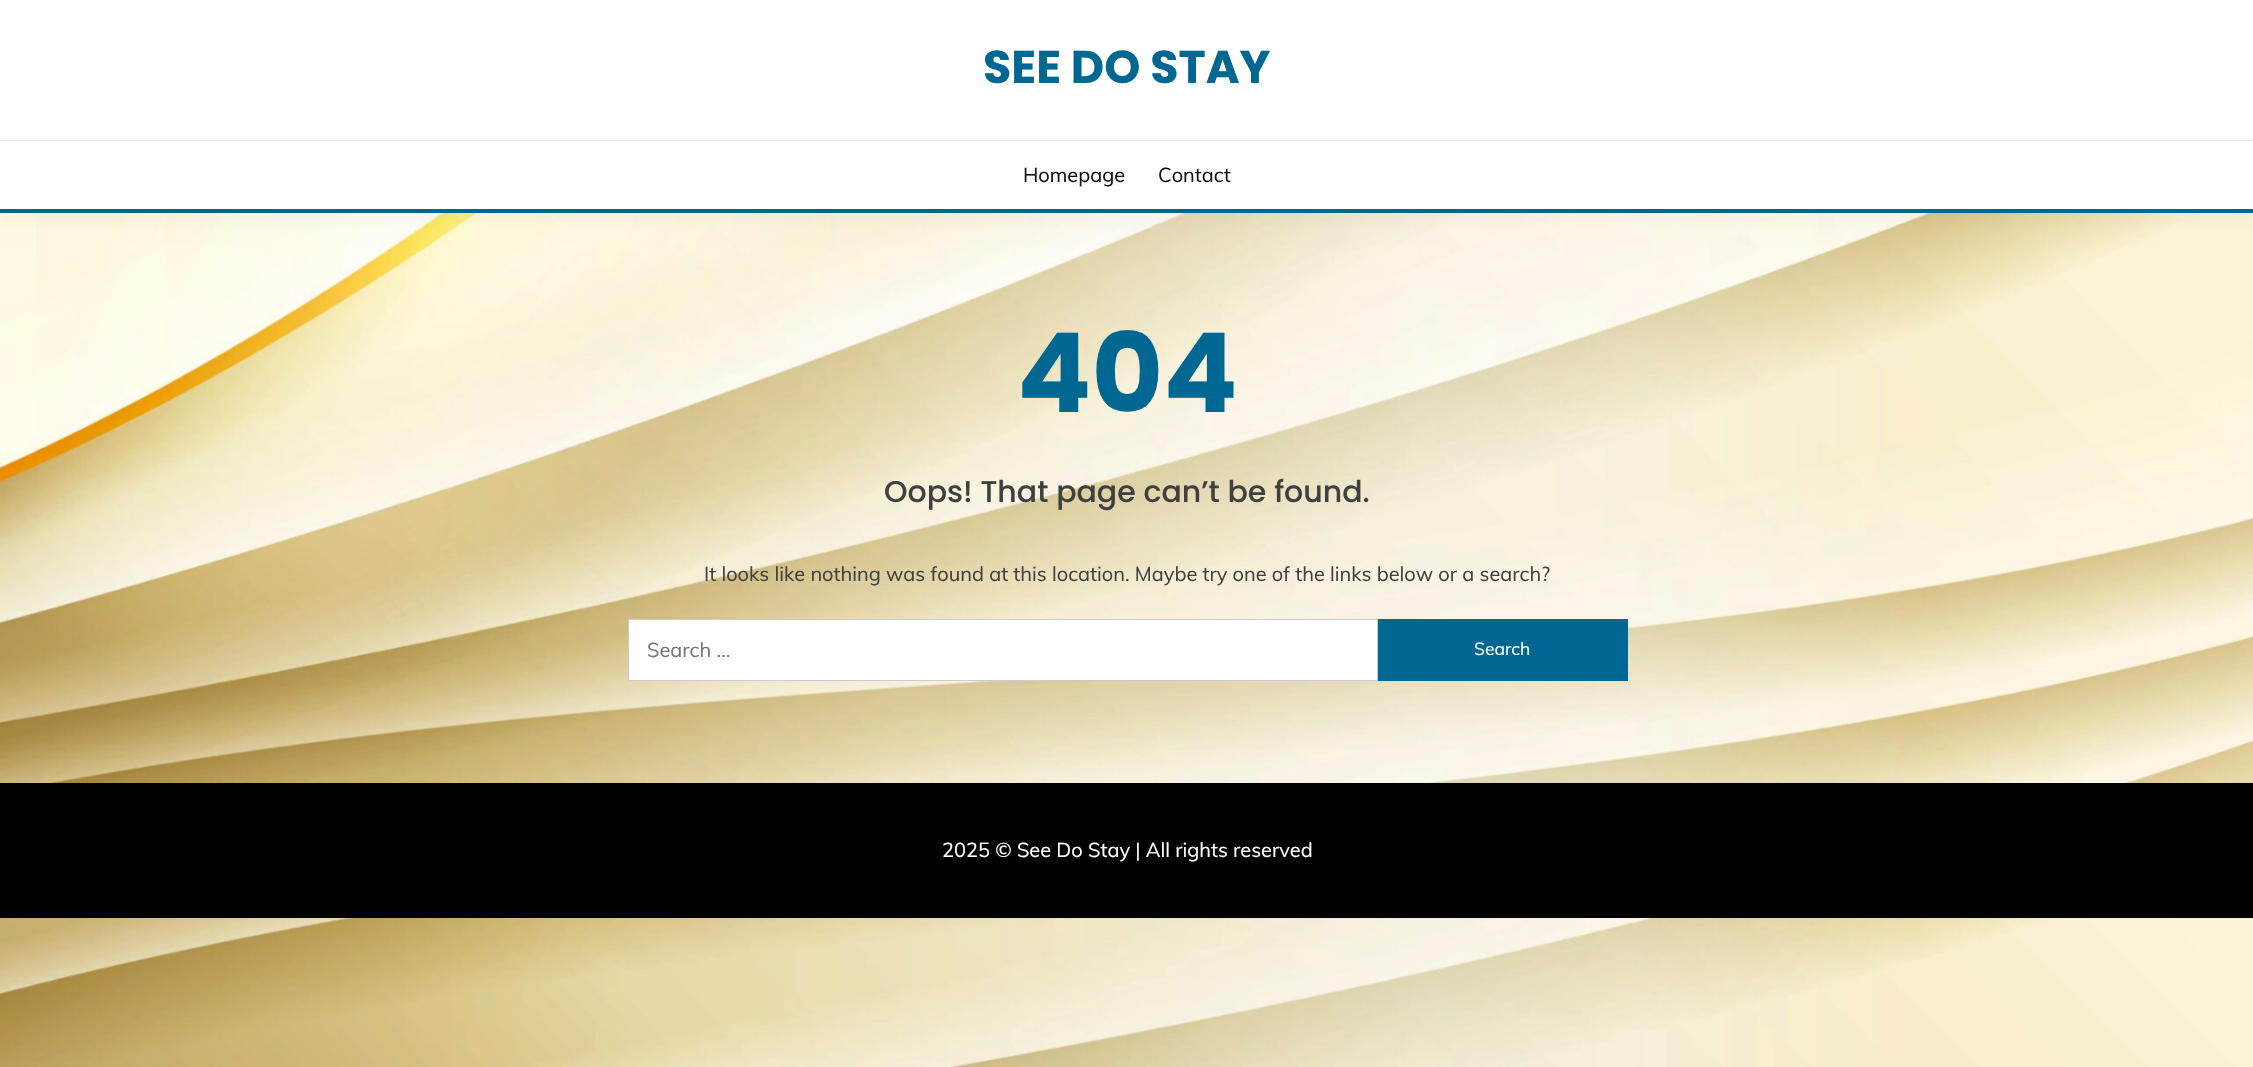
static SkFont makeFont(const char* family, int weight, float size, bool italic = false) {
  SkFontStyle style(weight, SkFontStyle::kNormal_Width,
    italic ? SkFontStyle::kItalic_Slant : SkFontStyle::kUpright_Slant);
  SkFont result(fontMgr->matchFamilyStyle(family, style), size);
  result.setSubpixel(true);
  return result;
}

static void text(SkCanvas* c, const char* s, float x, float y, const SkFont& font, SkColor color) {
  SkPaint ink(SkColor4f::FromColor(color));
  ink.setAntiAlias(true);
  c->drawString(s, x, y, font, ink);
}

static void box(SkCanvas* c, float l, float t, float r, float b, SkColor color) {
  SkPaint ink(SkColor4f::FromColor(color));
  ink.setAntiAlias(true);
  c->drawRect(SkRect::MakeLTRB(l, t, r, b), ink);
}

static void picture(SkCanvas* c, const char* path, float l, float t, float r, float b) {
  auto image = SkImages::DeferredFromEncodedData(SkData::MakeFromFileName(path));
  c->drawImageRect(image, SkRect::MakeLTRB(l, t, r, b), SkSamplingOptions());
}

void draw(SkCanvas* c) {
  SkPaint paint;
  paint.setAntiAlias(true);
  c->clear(0xffffffff);
  picture(c, "img_01.png", 0, 213, 2253, 1067);
  paint.setColor(0x0a000000);
  paint.setMaskFilter(SkMaskFilter::MakeBlur(kNormal_SkBlurStyle, 9.5f));
  c->drawRect(SkRect::MakeLTRB(0, 6, 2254, 219), paint);
  paint.setMaskFilter(nullptr);
  box(c, 0, 0, 2253, 209, 0xffffffff);
  box(c, 0, 140, 2253, 141, 0xffeeeeee);
  SkFont face1 = makeFont("Poppins", 700, 46);
  text(c, "SEE DO STAY", 983, 83, face1, 0xff006793);
  box(c, 0, 209, 2253, 213, 0xff006793);
  SkFont face2 = makeFont("Muli", 400, 20);
  text(c, "Homepage", 1023, 182, face2, 0xff141413);
  text(c, "Contact", 1158, 182, face2, 0xff141413);
  SkFont face3 = makeFont("Poppins", 700, 110);
  text(c, "404", 1017, 412, face3, 0xff006793);
  SkFont face4 = makeFont("Poppins", 500, 30);
  text(c, "Oops! That page can’t be found.", 884, 502, face4, 0xff404040);
  text(c, "It looks like nothing was found at this location. Maybe try one of the links below or a search?", 704, 581, face2, 0xff404040);
  paint.setColor(0xffffffff);
  c->drawRect(SkRect::MakeLTRB(628.5f, 619.5f, 1377.5f, 680.5f), paint);
  paint.setStyle(SkPaint::kStroke_Style);
  paint.setStrokeWidth(1);
  paint.setColor(0xffcccccc);
  c->drawRect(SkRect::MakeLTRB(628.5f, 619.5f, 1377.5f, 680.5f), paint);
  text(c, "Search …", 647, 657, face2, 0xff757575);
  box(c, 1378, 619, 1628, 681, 0xff006793);
  SkFont face5 = makeFont("Muli", 400, 17.5f);
  text(c, "Search", 1474, 655, face5, 0xffffffff);
  box(c, 0, 783, 2253, 918, 0xff000000);
  text(c, "2025 © See Do Stay | All rights reserved", 942, 857, face2, 0xffffffff);
}
